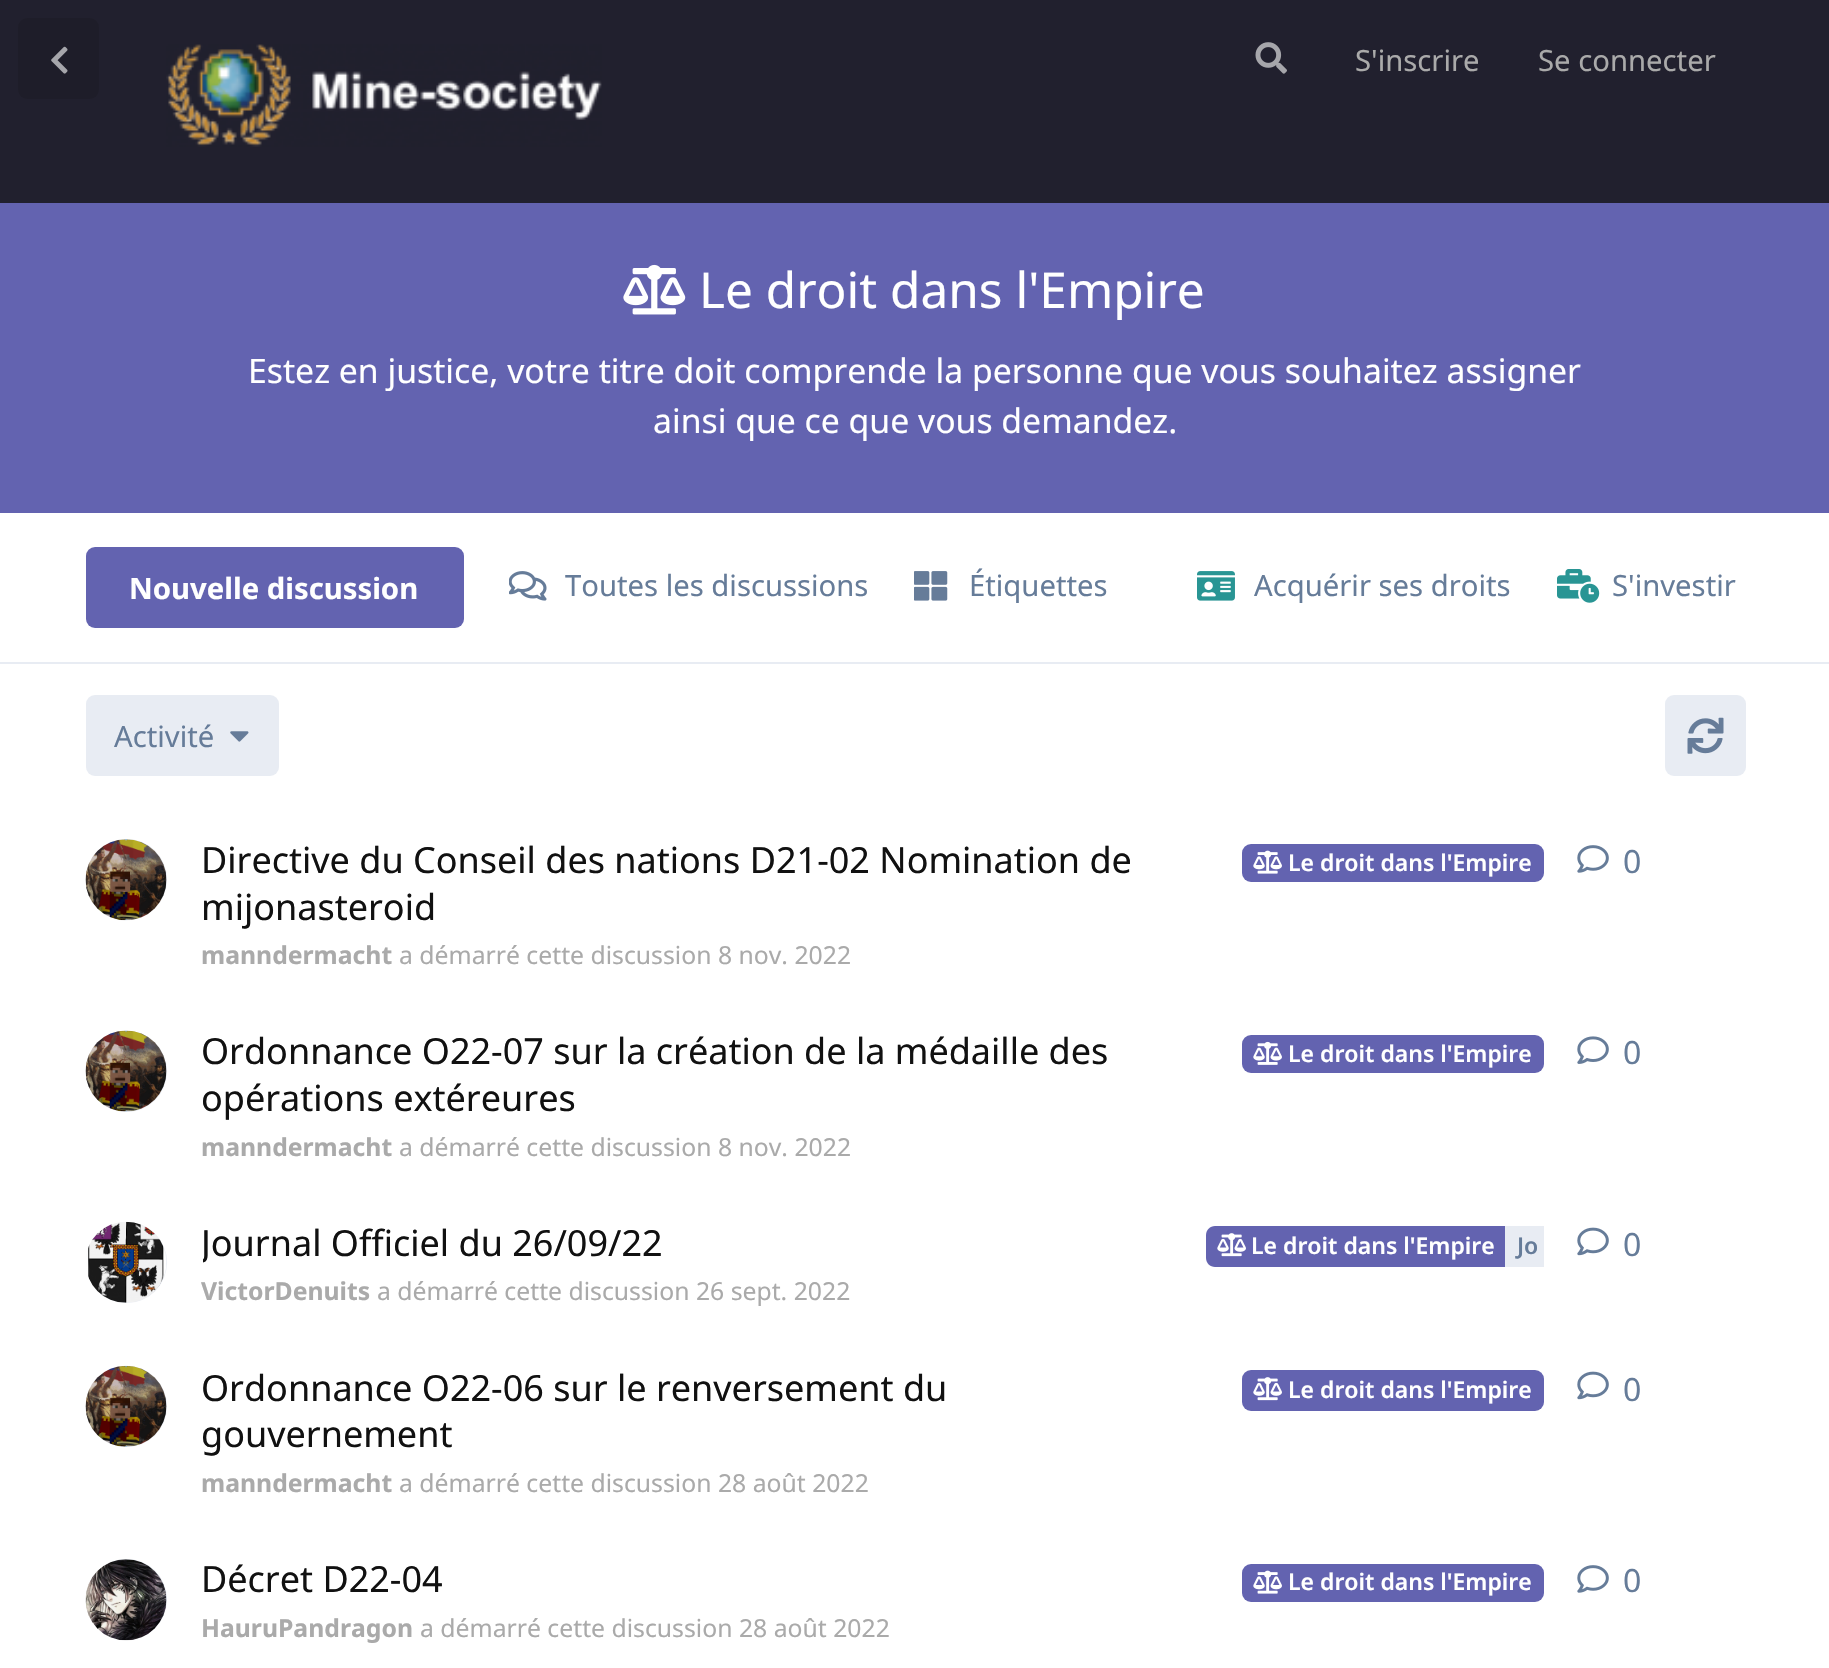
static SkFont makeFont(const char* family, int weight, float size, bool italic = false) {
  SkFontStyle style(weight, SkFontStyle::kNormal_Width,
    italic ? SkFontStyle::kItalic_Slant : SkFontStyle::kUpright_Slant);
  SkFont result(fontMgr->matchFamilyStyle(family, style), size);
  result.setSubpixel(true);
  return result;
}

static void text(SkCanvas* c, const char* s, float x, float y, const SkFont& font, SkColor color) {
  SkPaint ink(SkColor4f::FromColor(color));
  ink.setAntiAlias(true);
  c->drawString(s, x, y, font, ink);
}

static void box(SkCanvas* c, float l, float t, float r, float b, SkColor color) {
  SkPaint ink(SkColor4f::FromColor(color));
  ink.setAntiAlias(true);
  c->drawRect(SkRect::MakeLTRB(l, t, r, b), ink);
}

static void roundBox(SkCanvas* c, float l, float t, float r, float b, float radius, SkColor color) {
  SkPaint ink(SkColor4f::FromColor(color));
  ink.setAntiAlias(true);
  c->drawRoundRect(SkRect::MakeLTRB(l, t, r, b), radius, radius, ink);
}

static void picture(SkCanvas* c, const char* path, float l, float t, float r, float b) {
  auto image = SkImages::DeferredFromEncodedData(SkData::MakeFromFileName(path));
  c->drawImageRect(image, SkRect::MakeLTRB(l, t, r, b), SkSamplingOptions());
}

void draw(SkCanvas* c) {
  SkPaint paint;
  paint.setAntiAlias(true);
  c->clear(0xffffffff);
  box(c, 0, 0, 1829, 203, 0xff21202e);
  roundBox(c, 18, 18, 99, 99, 9, 0xff1e1d29);
  picture(c, "img_01.png", 51, 46, 68, 74);
  picture(c, "img_02.png", 166, 44, 602, 147);
  picture(c, "img_03.png", 1255, 42, 1287, 74);
  SkFont face1 = makeFont("Noto Sans", 400, 29.25f);
  text(c, "S'inscrire", 1355, 71, face1, 0xffaaaaaa);
  text(c, "Se connecter", 1538, 71, face1, 0xffaaaaaa);
  box(c, 0, 203, 1829, 513, 0xff6363b0);
  picture(c, "img_04.png", 623, 264, 686, 315);
  SkFont face2 = makeFont("Noto Sans", 400, 49.5f);
  text(c, "Le droit dans l'Empire", 699, 308, face2, 0xffffffff);
  SkFont face3 = makeFont("Noto Sans", 400, 33.75f);
  text(c, "Estez en justice, votre titre doit comprende la personne que vous souhaitez assigner", 248, 383, face3, 0xffffffff);
  text(c, "ainsi que ce que vous demandez.", 653, 433, face3, 0xffffffff);
  roundBox(c, 86, 547, 464, 628, 9, 0xff6363b0);
  SkFont face4 = makeFont("Noto Sans", 700, 29.25f);
  text(c, "Nouvelle discussion", 129, 599, face4, 0xffffffff);
  picture(c, "img_05.png", 509, 571, 547, 601);
  text(c, "Toutes les discussions", 565, 596, face1, 0xff667c99);
  picture(c, "img_06.png", 914, 571, 948, 601);
  text(c, "Étiquettes", 969, 596, face1, 0xff667c99);
  picture(c, "img_07.png", 1197, 571, 1235, 601);
  text(c, "Acquérir ses droits", 1254, 596, face1, 0xff667c99);
  picture(c, "img_08.png", 1557, 569, 1600, 603);
  text(c, "S'investir", 1612, 596, face1, 0xff667c99);
  box(c, 0, 662, 1829, 664, 0xffe8ecf3);
  roundBox(c, 86, 695, 279, 776, 9, 0xffe8ecf3);
  text(c, "Activité", 114, 747, face1, 0xff667c99);
  picture(c, "img_09.png", 230, 731, 249, 742);
  roundBox(c, 1665, 695, 1746, 776, 9, 0xffe8ecf3);
  picture(c, "img_10.png", 1687, 717, 1724, 754);
  paint.setColor(0xffe8ecf3);
  c->drawCircle(126.5f, 879.5f, 40.5f, paint);
  picture(c, "img_11.png", 85, 839, 167, 921);
  SkFont face5 = makeFont("Noto Sans", 400, 36);
  text(c, "Directive du Conseil des nations D21-02 Nomination de", 201, 873, face5, 0xff111111);
  text(c, "mijonasteroid", 201, 920, face5, 0xff111111);
  roundBox(c, 1242, 844, 1544, 882, 9, 0xff6363b0);
  picture(c, "img_12.png", 1253, 850, 1282, 874);
  SkFont face6 = makeFont("Noto Sans", 600, 23);
  text(c, "Le droit dans l'Empire", 1288, 871, face6, 0xffffffff);
  SkFont face7 = makeFont("Noto Sans", 700, 24.75f);
  text(c, "manndermacht", 201, 964, face7, 0xffaaaaaa);
  SkFont face8 = makeFont("Noto Sans", 400, 24.75f);
  text(c, "a démarré cette discussion 8 nov. 2022", 399, 964, face8, 0xffaaaaaa);
  picture(c, "img_13.png", 1577, 845, 1609, 873);
  SkFont face9 = makeFont("Noto Sans", 400, 32);
  text(c, "0", 1623, 873, face9, 0xff667c99);
  c->drawCircle(126.5f, 1071.5f, 40.5f, paint);
  picture(c, "img_14.png", 85, 1030, 167, 1112);
  text(c, "Ordonnance O22-07 sur la création de la médaille des", 201, 1064, face5, 0xff111111);
  text(c, "opérations extéreures", 201, 1111, face5, 0xff111111);
  roundBox(c, 1242, 1035, 1544, 1073, 9, 0xff6363b0);
  picture(c, "img_15.png", 1253, 1041, 1282, 1065);
  text(c, "Le droit dans l'Empire", 1288, 1062, face6, 0xffffffff);
  text(c, "manndermacht", 201, 1156, face7, 0xffaaaaaa);
  text(c, "a démarré cette discussion 8 nov. 2022", 399, 1156, face8, 0xffaaaaaa);
  picture(c, "img_16.png", 1577, 1036, 1609, 1064);
  text(c, "0", 1623, 1064, face9, 0xff667c99);
  c->drawCircle(126.5f, 1262.5f, 40.5f, paint);
  picture(c, "img_17.png", 86, 1221, 167, 1303);
  c->save();
  c->clipRect(SkRect::MakeLTRB(203, 1220, 1195, 1267));
  text(c, "Journal Officiel du 26/09/22", 201, 1256, face5, 0xff111111);
  c->restore();
  paint.setColor(0xff6363b0);
  c->drawPath(SkPathBuilder().moveTo(1215, 1226).lineTo(1505, 1226).lineTo(1505, 1267).lineTo(1215, 1267).cubicTo(1210, 1267, 1206, 1263, 1206, 1258).lineTo(1206, 1235).cubicTo(1206, 1230, 1210, 1226, 1215, 1226).close().detach(), paint);
  picture(c, "img_18.png", 1217, 1233, 1246, 1257);
  text(c, "Le droit dans l'Empire", 1251, 1254, face6, 0xffffffff);
  box(c, 1505, 1226, 1544, 1267, 0xffe8ecf3);
  text(c, "Jo", 1517, 1254, face6, 0xff667c99);
  text(c, "VictorDenuits", 201, 1300, face7, 0xffaaaaaa);
  text(c, "a démarré cette discussion 26 sept. 2022", 377, 1300, face8, 0xffaaaaaa);
  picture(c, "img_19.png", 1577, 1227, 1609, 1256);
  text(c, "0", 1623, 1256, face9, 0xff667c99);
  paint.setColor(0xffe8ecf3);
  c->drawCircle(126.5f, 1406.5f, 40.5f, paint);
  picture(c, "img_20.png", 85, 1365, 167, 1447);
  text(c, "Ordonnance O22-06 sur le renversement du", 201, 1401, face5, 0xff111111);
  text(c, "gouvernement", 201, 1447, face5, 0xff111111);
  roundBox(c, 1242, 1370, 1544, 1411, 9, 0xff6363b0);
  picture(c, "img_18.png", 1253, 1377, 1282, 1401);
  text(c, "Le droit dans l'Empire", 1288, 1398, face6, 0xffffffff);
  text(c, "manndermacht", 201, 1492, face7, 0xffaaaaaa);
  text(c, "a démarré cette discussion 28 août 2022", 399, 1492, face8, 0xffaaaaaa);
  picture(c, "img_19.png", 1577, 1371, 1609, 1400);
  text(c, "0", 1623, 1401, face9, 0xff667c99);
  c->drawCircle(126.5f, 1599.5f, 40.5f, paint);
  picture(c, "img_21.png", 85, 1559, 167, 1641);
  text(c, "Décret D22-04", 201, 1592, face5, 0xff111111);
  roundBox(c, 1242, 1564, 1544, 1602, 9, 0xff6363b0);
  picture(c, "img_12.png", 1253, 1570, 1282, 1594);
  text(c, "Le droit dans l'Empire", 1288, 1590, face6, 0xffffffff);
  text(c, "HauruPandragon", 201, 1637, face7, 0xffaaaaaa);
  text(c, "a démarré cette discussion 28 août 2022", 420, 1637, face8, 0xffaaaaaa);
  picture(c, "img_13.png", 1577, 1565, 1609, 1593);
  text(c, "0", 1623, 1592, face9, 0xff667c99);
}
